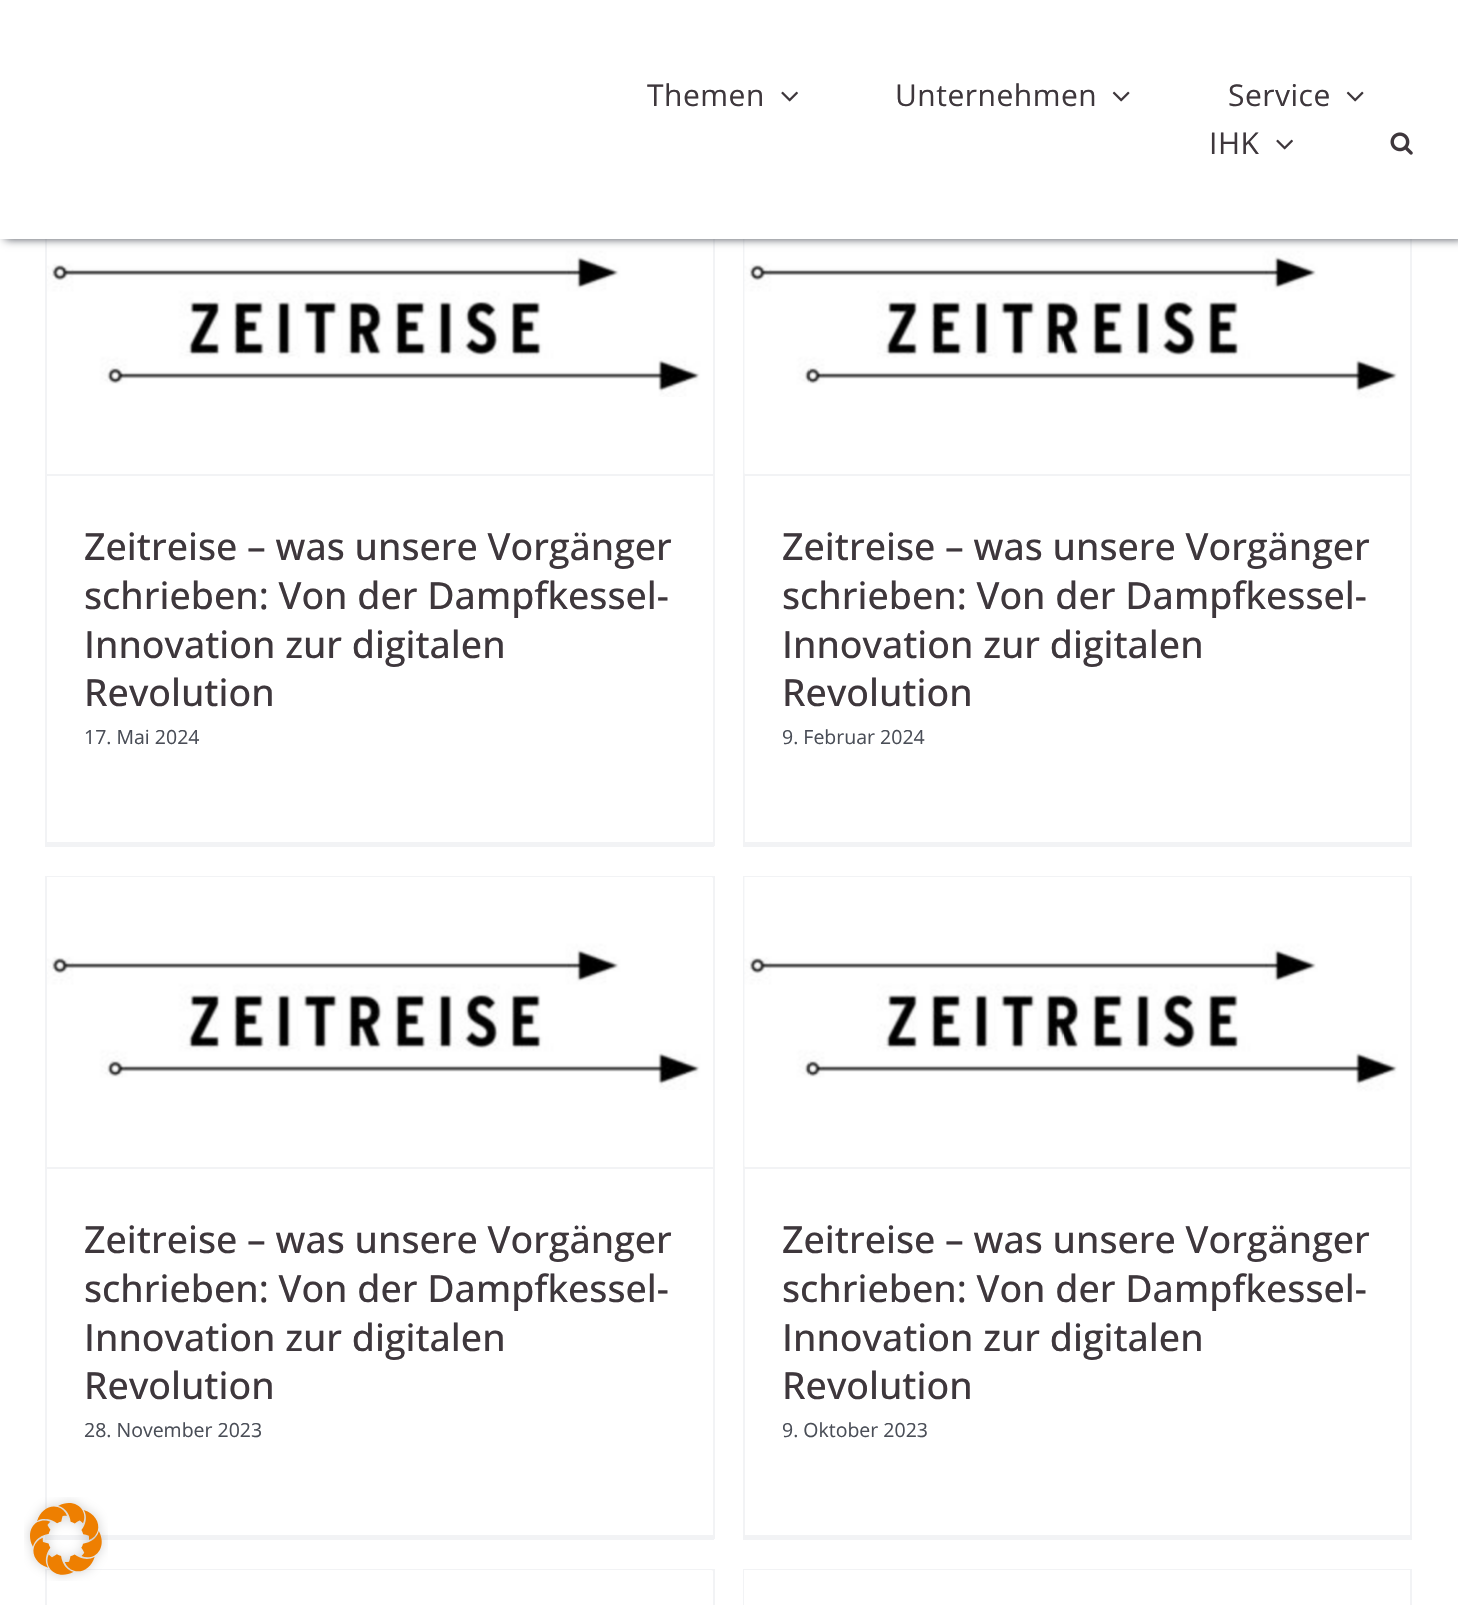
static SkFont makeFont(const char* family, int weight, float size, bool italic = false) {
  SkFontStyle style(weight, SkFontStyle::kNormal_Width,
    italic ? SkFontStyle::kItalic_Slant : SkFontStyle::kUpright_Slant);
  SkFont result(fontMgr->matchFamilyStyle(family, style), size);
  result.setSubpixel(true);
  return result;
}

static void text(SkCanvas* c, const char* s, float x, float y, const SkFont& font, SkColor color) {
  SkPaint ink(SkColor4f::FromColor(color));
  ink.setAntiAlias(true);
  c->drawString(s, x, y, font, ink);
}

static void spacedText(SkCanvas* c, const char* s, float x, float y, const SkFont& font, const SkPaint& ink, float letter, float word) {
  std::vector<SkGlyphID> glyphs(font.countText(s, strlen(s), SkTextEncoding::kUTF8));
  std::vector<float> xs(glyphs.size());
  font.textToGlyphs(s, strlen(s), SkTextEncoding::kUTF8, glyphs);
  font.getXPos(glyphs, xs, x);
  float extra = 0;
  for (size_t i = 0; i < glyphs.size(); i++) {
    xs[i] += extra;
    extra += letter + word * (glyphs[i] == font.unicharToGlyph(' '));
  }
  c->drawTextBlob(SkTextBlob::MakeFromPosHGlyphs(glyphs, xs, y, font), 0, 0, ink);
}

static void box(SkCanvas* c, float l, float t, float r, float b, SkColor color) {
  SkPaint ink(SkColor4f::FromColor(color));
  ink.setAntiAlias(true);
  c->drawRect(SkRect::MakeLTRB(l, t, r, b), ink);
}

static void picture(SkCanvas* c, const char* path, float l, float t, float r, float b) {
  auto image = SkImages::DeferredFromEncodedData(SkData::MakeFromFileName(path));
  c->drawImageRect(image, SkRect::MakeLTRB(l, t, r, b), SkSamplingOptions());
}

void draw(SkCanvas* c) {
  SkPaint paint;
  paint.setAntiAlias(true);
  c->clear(0xffffffff);
  box(c, 713, 239, 715, 846, 0xfff2f3f5);
  box(c, 45, 842, 714, 847, 0xfff2f3f5);
  box(c, 45, 239, 47, 846, 0xfff2f3f5);
  picture(c, "img_04.png", 47, 239, 713, 397);
  box(c, 1410, 239, 1412, 846, 0xfff2f3f5);
  box(c, 743, 842, 1412, 847, 0xfff2f3f5);
  box(c, 743, 239, 745, 846, 0xfff2f3f5);
  picture(c, "img_05.png", 744, 239, 1410, 474);
  paint.setColor(0xff4a4e57);
  paint.setMaskFilter(SkMaskFilter::MakeBlur(kNormal_SkBlurStyle, 4.5f));
  c->drawRect(SkRect::MakeLTRB(5, 0, 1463, 239), paint);
  paint.setMaskFilter(nullptr);
  box(c, 0, 0, 1458, 239, 0xffffffff);
  SkFont face1 = makeFont("Open Sans", 400, 30);
  paint.setColor(0xff3e373c);
  spacedText(c, "Themen", 647, 106, face1, paint, 0.5f, 0);
  picture(c, "img_01.png", 781, 91, 798, 102);
  spacedText(c, "Unternehmen", 895, 106, face1, paint, 0.5f, 0);
  picture(c, "img_02.png", 1112, 91, 1130, 102);
  spacedText(c, "Service", 1228, 106, face1, paint, 0.5f, 0);
  picture(c, "img_02.png", 1346, 91, 1364, 102);
  spacedText(c, "IHK", 1209, 154, face1, paint, 0.5f, 0);
  picture(c, "img_01.png", 1276, 139, 1293, 150);
  picture(c, "img_03.png", 1390, 132, 1413, 155);
  box(c, 47, 474, 713, 476, 0xfff2f3f5);
  SkFont face2 = makeFont("Open Sans", 500, 37.5f);
  text(c, "Zeitreise – was unsere Vorgänger", 84, 560, face2, 0xff3e373c);
  text(c, "schrieben: Von der Dampfkessel-", 84, 609, face2, 0xff3e373c);
  text(c, "Innovation zur digitalen", 84, 658, face2, 0xff3e373c);
  text(c, "Revolution", 84, 706, face2, 0xff3e373c);
  SkFont face3 = makeFont("Open Sans", 400, 19.5f);
  text(c, "17. Mai 2024", 84, 744, face3, 0xff4a4e57);
  box(c, 744, 474, 1410, 476, 0xfff2f3f5);
  text(c, "Zeitreise – was unsere Vorgänger", 782, 560, face2, 0xff3e373c);
  text(c, "schrieben: Von der Dampfkessel-", 782, 609, face2, 0xff3e373c);
  text(c, "Innovation zur digitalen", 782, 658, face2, 0xff3e373c);
  text(c, "Revolution", 782, 706, face2, 0xff3e373c);
  text(c, "9. Februar 2024", 782, 744, face3, 0xff4a4e57);
  box(c, 45, 876, 714, 878, 0xfff2f3f5);
  box(c, 713, 876, 715, 1539, 0xfff2f3f5);
  box(c, 45, 1535, 714, 1540, 0xfff2f3f5);
  box(c, 45, 876, 47, 1539, 0xfff2f3f5);
  box(c, 47, 1167, 713, 1169, 0xfff2f3f5);
  picture(c, "img_06.png", 47, 877, 713, 1090);
  text(c, "Zeitreise – was unsere Vorgänger", 84, 1253, face2, 0xff3e373c);
  text(c, "schrieben: Von der Dampfkessel-", 84, 1302, face2, 0xff3e373c);
  text(c, "Innovation zur digitalen", 84, 1351, face2, 0xff3e373c);
  text(c, "Revolution", 84, 1399, face2, 0xff3e373c);
  text(c, "28. November 2023", 84, 1437, face3, 0xff4a4e57);
  box(c, 743, 876, 1412, 878, 0xfff2f3f5);
  box(c, 1410, 876, 1412, 1539, 0xfff2f3f5);
  box(c, 743, 1535, 1412, 1540, 0xfff2f3f5);
  box(c, 743, 876, 745, 1539, 0xfff2f3f5);
  box(c, 744, 1167, 1410, 1169, 0xfff2f3f5);
  picture(c, "img_07.png", 744, 877, 1410, 1167);
  text(c, "Zeitreise – was unsere Vorgänger", 782, 1253, face2, 0xff3e373c);
  text(c, "schrieben: Von der Dampfkessel-", 782, 1302, face2, 0xff3e373c);
  text(c, "Innovation zur digitalen", 782, 1351, face2, 0xff3e373c);
  text(c, "Revolution", 782, 1399, face2, 0xff3e373c);
  text(c, "9. Oktober 2023", 782, 1437, face3, 0xff4a4e57);
  box(c, 45, 1569, 714, 1571, 0xfff2f3f5);
  box(c, 713, 1569, 715, 1605, 0xfff2f3f5);
  box(c, 45, 1569, 47, 1605, 0xfff2f3f5);
  picture(c, "img_08.png", 47, 1570, 713, 1571);
  box(c, 743, 1569, 1412, 1570, 0xfff2f3f5);
  box(c, 1410, 1569, 1412, 1605, 0xfff2f3f5);
  box(c, 743, 1569, 745, 1605, 0xfff2f3f5);
  box(c, 744, 1570, 745, 1605, 0xffffffff);
  picture(c, "img_09.png", 24, 1497, 108, 1581);
}
